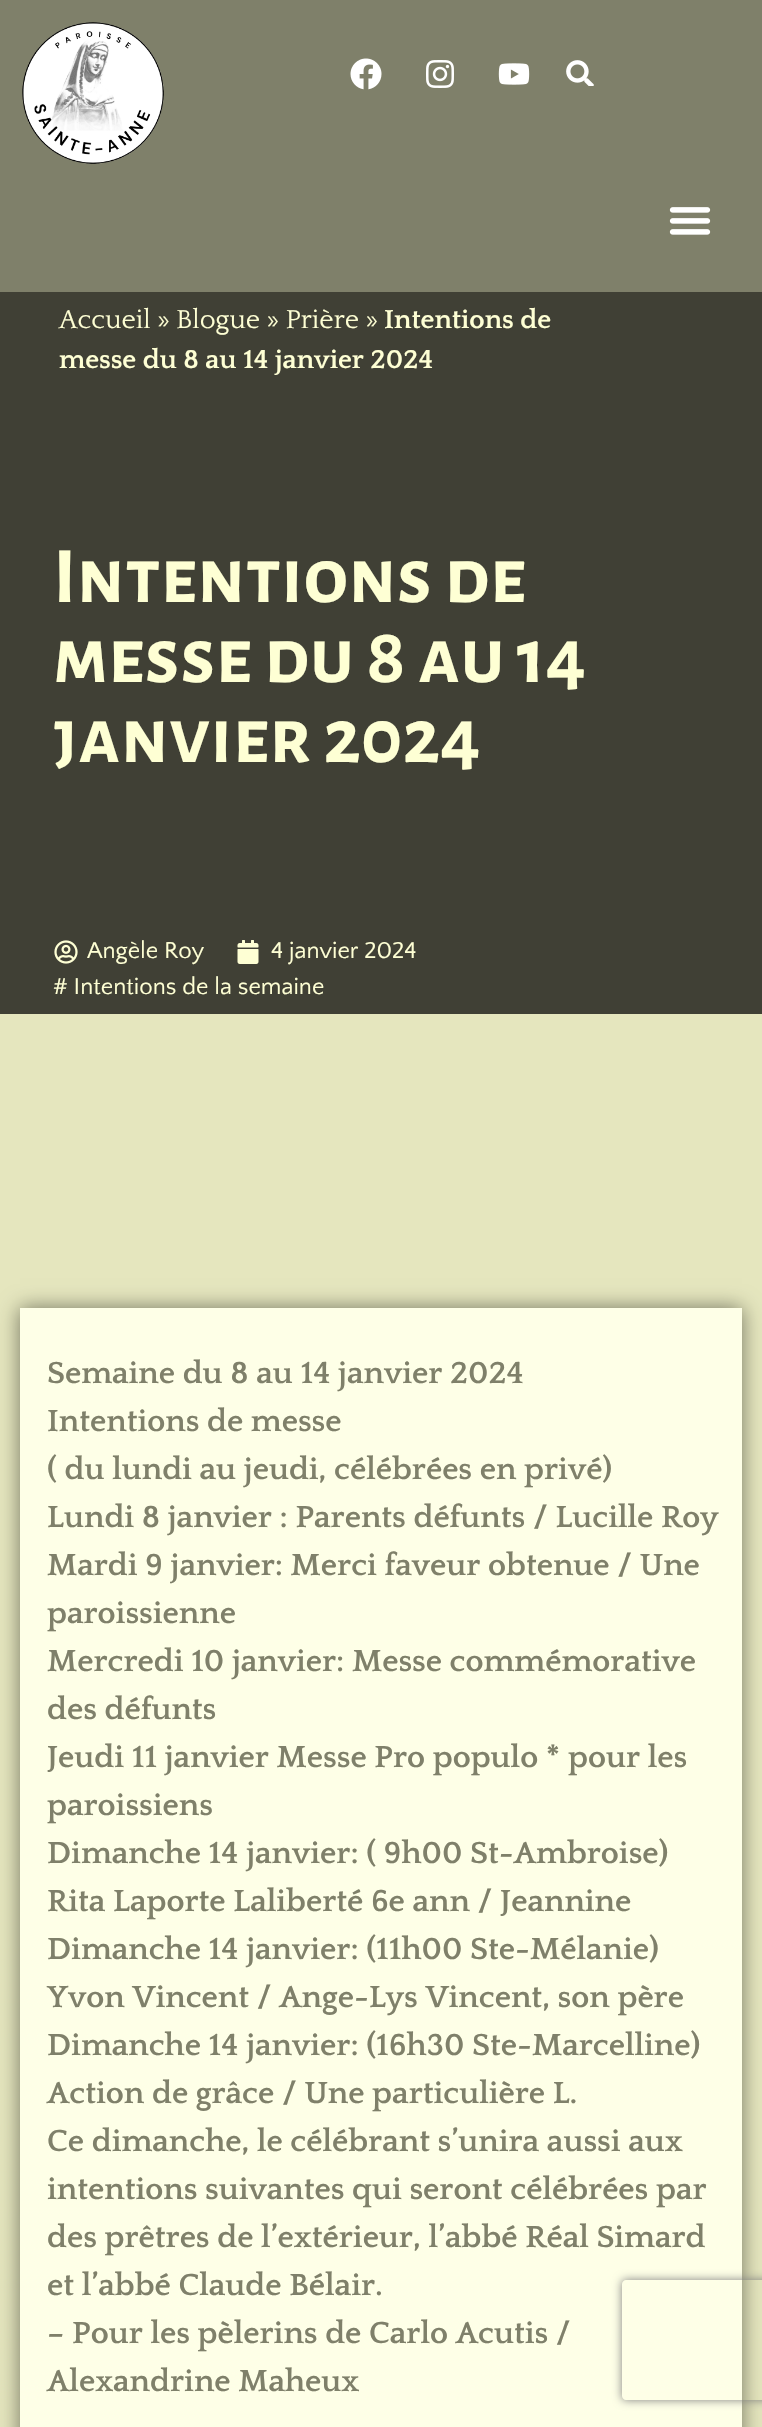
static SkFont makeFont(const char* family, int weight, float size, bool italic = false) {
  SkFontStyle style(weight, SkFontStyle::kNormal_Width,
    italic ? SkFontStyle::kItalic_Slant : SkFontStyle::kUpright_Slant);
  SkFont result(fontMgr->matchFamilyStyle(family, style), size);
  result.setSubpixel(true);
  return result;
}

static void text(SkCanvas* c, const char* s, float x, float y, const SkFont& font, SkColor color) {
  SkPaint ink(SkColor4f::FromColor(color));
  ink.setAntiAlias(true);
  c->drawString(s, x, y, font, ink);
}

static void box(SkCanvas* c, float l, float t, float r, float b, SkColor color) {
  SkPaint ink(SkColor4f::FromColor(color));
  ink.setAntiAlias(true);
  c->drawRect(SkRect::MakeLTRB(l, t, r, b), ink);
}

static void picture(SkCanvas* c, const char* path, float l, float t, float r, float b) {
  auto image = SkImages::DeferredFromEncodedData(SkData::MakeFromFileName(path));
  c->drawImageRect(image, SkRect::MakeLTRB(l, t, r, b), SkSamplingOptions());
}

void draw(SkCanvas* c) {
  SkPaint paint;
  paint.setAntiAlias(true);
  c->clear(0xffe5e6be);
  box(c, 0, 0, 762, 292, 0xff7f806a);
  picture(c, "img_01.png", 22, 22, 164, 164);
  picture(c, "img_02.png", 350, 58, 382, 90);
  picture(c, "img_03.png", 426, 60, 454, 88);
  picture(c, "img_04.png", 498, 63, 530, 85);
  picture(c, "img_05.png", 566, 60, 594, 86);
  picture(c, "img_06.png", 669, 207, 711, 235);
  box(c, 0, 292, 762, 1014, 0xff404035);
  SkFont face1 = makeFont("Quattrocento", 400, 27.25f);
  text(c, "Accueil » Blogue » Prière »", 59, 328, face1, 0xfffeffd4);
  SkFont face2 = makeFont("Quattrocento", 700, 27.25f);
  text(c, "Intentions de", 384, 328, face2, 0xfffeffd4);
  text(c, "messe du 8 au 14 janvier 2024", 59, 368, face2, 0xfffeffd4);
  SkFont face3 = makeFont("Alegreya Sans SC", 700, 80);
  text(c, "Intentions de", 53, 602, face3, 0xfffeffd4);
  text(c, "messe du 8 au 14", 53, 682, face3, 0xfffeffd4);
  text(c, "janvier 2024", 53, 762, face3, 0xfffeffd4);
  picture(c, "img_07.png", 54, 940, 78, 964);
  SkFont face4 = makeFont("Quattrocento Sans", 400, 24);
  text(c, "Angèle Roy", 87, 958, face4, 0xfffeffd4);
  picture(c, "img_08.png", 237, 940, 259, 964);
  text(c, "4 janvier 2024", 271, 958, face4, 0xfffeffd4);
  text(c, "# Intentions de la semaine", 53, 994, face4, 0xfffeffd4);
  paint.setColor(0x80000000);
  paint.setMaskFilter(SkMaskFilter::MakeBlur(kNormal_SkBlurStyle, 10));
  c->drawRect(SkRect::MakeLTRB(20, 1308, 742, 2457), paint);
  paint.setMaskFilter(nullptr);
  box(c, 20, 1308, 742, 2427, 0xfffeffe7);
  SkFont face5 = makeFont("Quattrocento", 700, 32);
  text(c, "Semaine du 8 au 14 janvier 2024", 47, 1383, face5, 0xff7f806a);
  text(c, "Intentions de messe", 47, 1431, face5, 0xff7f806a);
  text(c, "( du lundi au jeudi, célébrées en privé)", 47, 1479, face5, 0xff7f806a);
  text(c, "Lundi 8 janvier : Parents défunts / Lucille Roy", 47, 1527, face5, 0xff7f806a);
  text(c, "Mardi 9 janvier: Merci faveur obtenue / Une", 47, 1575, face5, 0xff7f806a);
  text(c, "paroissienne", 47, 1623, face5, 0xff7f806a);
  text(c, "Mercredi 10 janvier: Messe commémorative", 47, 1671, face5, 0xff7f806a);
  text(c, "des défunts", 47, 1719, face5, 0xff7f806a);
  text(c, "Jeudi 11 janvier Messe Pro populo * pour les", 47, 1767, face5, 0xff7f806a);
  text(c, "paroissiens", 47, 1815, face5, 0xff7f806a);
  text(c, "Dimanche 14 janvier: ( 9h00 St-Ambroise)", 47, 1863, face5, 0xff7f806a);
  text(c, "Rita Laporte Laliberté 6e ann / Jeannine", 47, 1911, face5, 0xff7f806a);
  text(c, "Dimanche 14 janvier: (11h00 Ste-Mélanie)", 47, 1959, face5, 0xff7f806a);
  text(c, "Yvon Vincent / Ange-Lys Vincent, son père", 47, 2007, face5, 0xff7f806a);
  text(c, "Dimanche 14 janvier: (16h30 Ste-Marcelline)", 47, 2055, face5, 0xff7f806a);
  text(c, "Action de grâce / Une particulière L.", 47, 2103, face5, 0xff7f806a);
  text(c, "Ce dimanche, le célébrant s’unira aussi aux", 47, 2151, face5, 0xff7f806a);
  text(c, "intentions suivantes qui seront célébrées par", 47, 2199, face5, 0xff7f806a);
  text(c, "des prêtres de l’extérieur, l’abbé Réal Simard", 47, 2247, face5, 0xff7f806a);
  text(c, "et l’abbé Claude Bélair.", 47, 2295, face5, 0xff7f806a);
  text(c, "– Pour les pèlerins de Carlo Acutis /", 47, 2343, face5, 0xff7f806a);
  text(c, "Alexandrine Maheux", 47, 2391, face5, 0xff7f806a);
  c->save();
  c->clipPath(SkPathBuilder(SkPathFillType::kEvenOdd).moveTo(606, 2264).lineTo(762, 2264).lineTo(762, 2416).lineTo(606, 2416).close().moveTo(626, 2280).lineTo(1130, 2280).cubicTo(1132, 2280, 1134, 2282, 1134, 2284).lineTo(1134, 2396).cubicTo(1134, 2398, 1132, 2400, 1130, 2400).lineTo(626, 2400).cubicTo(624, 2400, 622, 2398, 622, 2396).lineTo(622, 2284).cubicTo(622, 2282, 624, 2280, 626, 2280).close().detach(), true);
  paint.setColor(0xff808080);
  paint.setMaskFilter(SkMaskFilter::MakeBlur(kNormal_SkBlurStyle, 5));
  c->drawRoundRect(SkRect::MakeLTRB(622, 2280, 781, 2400), 4, 4, paint);
  paint.setMaskFilter(nullptr);
  c->restore();
}
